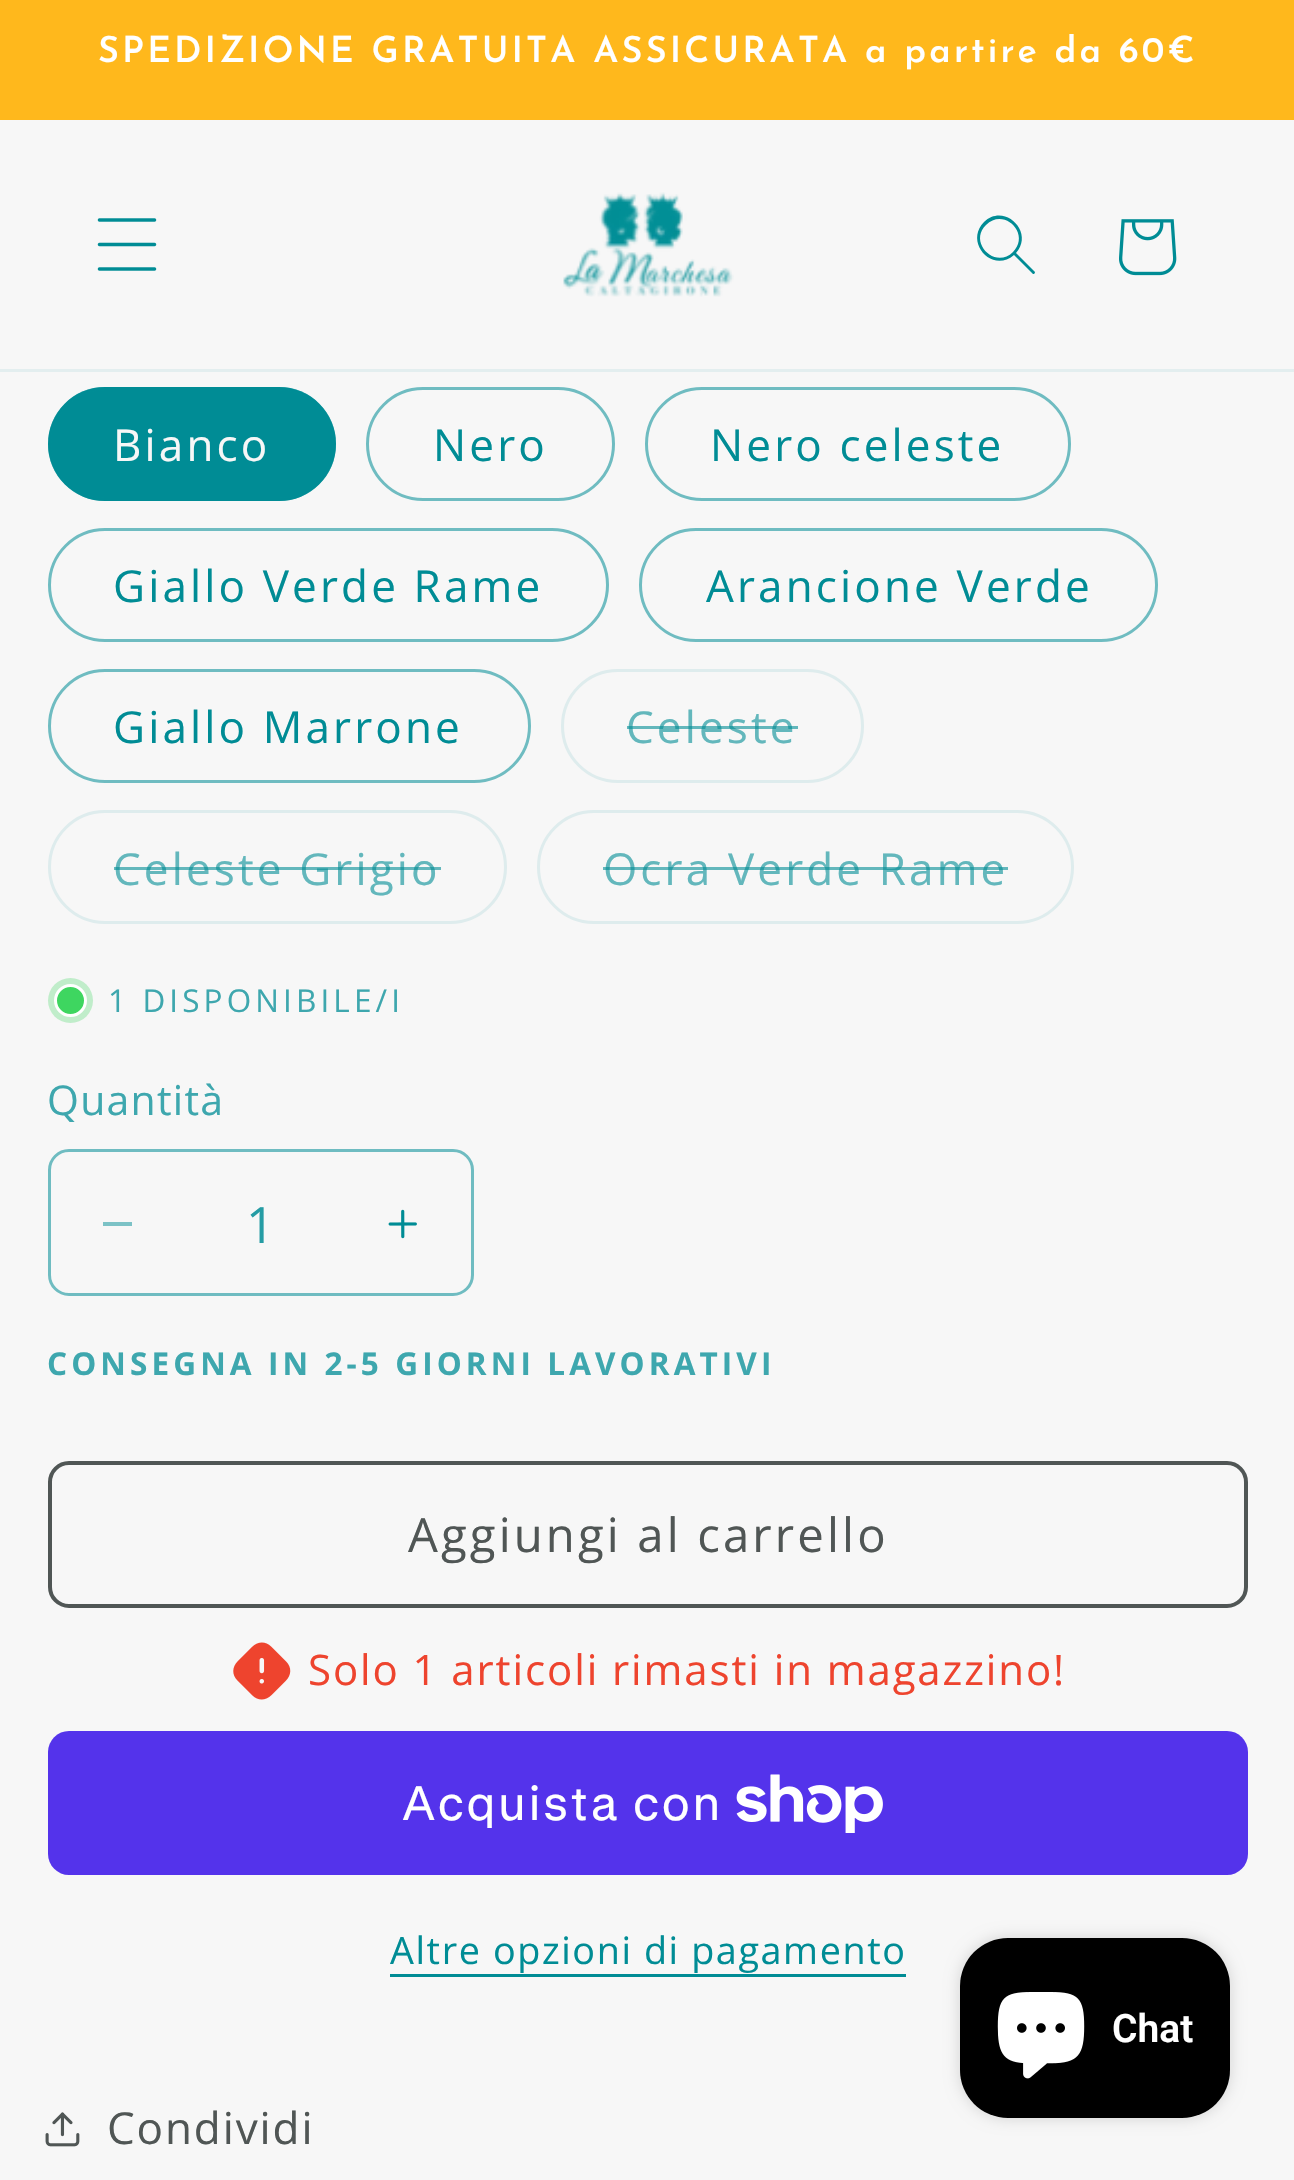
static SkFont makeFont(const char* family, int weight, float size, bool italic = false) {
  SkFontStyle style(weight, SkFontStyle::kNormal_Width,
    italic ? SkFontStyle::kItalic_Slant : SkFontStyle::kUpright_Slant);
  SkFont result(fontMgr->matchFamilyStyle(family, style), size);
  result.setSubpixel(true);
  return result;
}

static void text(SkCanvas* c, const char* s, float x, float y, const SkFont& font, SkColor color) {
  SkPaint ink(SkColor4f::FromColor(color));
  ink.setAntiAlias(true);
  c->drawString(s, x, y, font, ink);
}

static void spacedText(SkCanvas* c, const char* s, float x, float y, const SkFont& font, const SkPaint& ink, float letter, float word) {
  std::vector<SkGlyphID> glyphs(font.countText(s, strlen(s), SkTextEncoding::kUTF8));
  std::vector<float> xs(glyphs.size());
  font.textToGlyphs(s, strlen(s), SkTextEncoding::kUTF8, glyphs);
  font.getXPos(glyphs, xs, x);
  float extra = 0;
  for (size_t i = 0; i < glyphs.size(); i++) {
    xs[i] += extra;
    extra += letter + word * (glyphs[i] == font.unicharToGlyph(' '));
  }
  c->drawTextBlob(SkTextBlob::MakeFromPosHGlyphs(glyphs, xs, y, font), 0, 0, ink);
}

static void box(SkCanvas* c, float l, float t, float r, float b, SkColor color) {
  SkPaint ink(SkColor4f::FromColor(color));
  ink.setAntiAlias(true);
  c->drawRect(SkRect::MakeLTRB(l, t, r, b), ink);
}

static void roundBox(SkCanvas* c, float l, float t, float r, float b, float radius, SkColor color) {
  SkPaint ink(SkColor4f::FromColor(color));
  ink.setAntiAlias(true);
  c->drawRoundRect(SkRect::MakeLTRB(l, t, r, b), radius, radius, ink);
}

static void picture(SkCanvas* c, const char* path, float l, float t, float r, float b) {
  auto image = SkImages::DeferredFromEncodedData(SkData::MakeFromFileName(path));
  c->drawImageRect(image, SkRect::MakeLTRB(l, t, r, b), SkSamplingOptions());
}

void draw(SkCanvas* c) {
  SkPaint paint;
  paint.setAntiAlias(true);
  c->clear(0xfff7f7f7);
  box(c, 0, 0, 1294, 120, 0xffffb81c);
  SkFont face1 = makeFont("Josefin Sans", 600, 36);
  paint.setColor(0xffffffff);
  spacedText(c, "SPEDIZIONE GRATUITA ASSICURATA a partire da 60€", 98, 62, face1, paint, 3.15f, 0);
  box(c, 0, 369, 1294, 372, 0xffe3eeef);
  picture(c, "img_01.png", 97, 218, 157, 271);
  picture(c, "img_02.png", 563, 192, 734, 297);
  paint.setColor(0xff008c95);
  c->drawPath(SkPathBuilder(SkPathFillType::kEvenOdd).moveTo(1013, 252).cubicTo(995, 270, 968, 242, 986, 225).cubicTo(1004, 207, 1031, 234, 1013, 252).moveTo(1014, 255).cubicTo(992, 274, 964, 242, 984, 222).cubicTo(1004, 202, 1035, 232, 1016, 253).lineTo(1035, 272).cubicTo(1035, 274, 1033, 275, 1032, 273).close().detach(), paint);
  picture(c, "img_03.png", 1119, 219, 1177, 276);
  roundBox(c, 48, 387, 336, 501, 57, 0xff008c95);
  paint.setStyle(SkPaint::kStroke_Style);
  paint.setStrokeWidth(3);
  paint.setColor(0x8c008c95);
  c->drawRoundRect(SkRect::MakeLTRB(49.5f, 388.5f, 334.5f, 499.5f), 55.5f, 55.5f, paint);
  SkFont face2 = makeFont("Open Sans", 400, 44);
  paint.setStyle(SkPaint::kFill_Style);
  paint.setColor(0xfff7f7f7);
  spacedText(c, "Bianco", 113, 461, face2, paint, 3.15f, 0);
  paint.setStyle(SkPaint::kStroke_Style);
  paint.setColor(0xff6fbcc1);
  c->drawRoundRect(SkRect::MakeLTRB(367.5f, 388.5f, 613.5f, 499.5f), 55.5f, 55.5f, paint);
  paint.setStyle(SkPaint::kFill_Style);
  paint.setColor(0xff008c95);
  spacedText(c, "Nero", 433, 461, face2, paint, 3.15f, 0);
  paint.setStyle(SkPaint::kStroke_Style);
  paint.setColor(0xff6fbcc1);
  c->drawRoundRect(SkRect::MakeLTRB(646.5f, 388.5f, 1069.5f, 499.5f), 55.5f, 55.5f, paint);
  paint.setStyle(SkPaint::kFill_Style);
  paint.setColor(0xff008c95);
  spacedText(c, "Nero celeste", 710, 461, face2, paint, 3.15f, 0);
  paint.setStyle(SkPaint::kStroke_Style);
  paint.setColor(0xff6fbcc1);
  c->drawRoundRect(SkRect::MakeLTRB(49.5f, 529.5f, 607.5f, 640.5f), 55.5f, 55.5f, paint);
  paint.setStyle(SkPaint::kFill_Style);
  paint.setColor(0xff008c95);
  spacedText(c, "Giallo Verde Rame", 113, 602, face2, paint, 3.15f, 0);
  paint.setStyle(SkPaint::kStroke_Style);
  paint.setColor(0xff6fbcc1);
  c->drawRoundRect(SkRect::MakeLTRB(640.5f, 529.5f, 1156.5f, 640.5f), 55.5f, 55.5f, paint);
  paint.setStyle(SkPaint::kFill_Style);
  paint.setColor(0xff008c95);
  spacedText(c, "Arancione Verde", 706, 602, face2, paint, 3.15f, 0);
  paint.setStyle(SkPaint::kStroke_Style);
  paint.setColor(0xff6fbcc1);
  c->drawRoundRect(SkRect::MakeLTRB(49.5f, 670.5f, 529.5f, 781.5f), 55.5f, 55.5f, paint);
  paint.setStyle(SkPaint::kFill_Style);
  paint.setColor(0xff008c95);
  spacedText(c, "Giallo Marrone", 113, 743, face2, paint, 3.15f, 0);
  paint.setStyle(SkPaint::kStroke_Style);
  paint.setColor(0xffdeeced);
  c->drawRoundRect(SkRect::MakeLTRB(562.5f, 670.5f, 862.5f, 781.5f), 55.5f, 55.5f, paint);
  paint.setStyle(SkPaint::kFill_Style);
  paint.setColor(0xff63b7bc);
  spacedText(c, "Celeste", 626, 743, face2, paint, 3.15f, 0);
  box(c, 627, 726, 798, 729, 0x99008c95);
  paint.setStyle(SkPaint::kStroke_Style);
  paint.setColor(0xffdeeced);
  c->drawRoundRect(SkRect::MakeLTRB(49.5f, 811.5f, 505.5f, 922.5f), 55.5f, 55.5f, paint);
  paint.setStyle(SkPaint::kFill_Style);
  paint.setColor(0xff63b7bc);
  spacedText(c, "Celeste Grigio", 113, 885, face2, paint, 3.15f, 0);
  box(c, 114, 867, 441, 870, 0x99008c95);
  paint.setStyle(SkPaint::kStroke_Style);
  paint.setColor(0xffdeeced);
  c->drawRoundRect(SkRect::MakeLTRB(538.5f, 811.5f, 1072.5f, 922.5f), 55.5f, 55.5f, paint);
  paint.setStyle(SkPaint::kFill_Style);
  paint.setColor(0xff63b7bc);
  spacedText(c, "Ocra Verde Rame", 603, 885, face2, paint, 3.15f, 0);
  box(c, 603, 867, 1008, 870, 0x99008c95);
  paint.setColor(0xffc0edca);
  c->drawCircle(70.5f, 1000.5f, 22.5f, paint);
  paint.setColor(0xff3ed660);
  c->drawCircle(70.5f, 1000.5f, 15, paint);
  paint.setStyle(SkPaint::kStroke_Style);
  paint.setColor(0xffffffff);
  c->drawCircle(70.5f, 1000.5f, 15, paint);
  SkFont face3 = makeFont("Open Sans", 400, 31.5f);
  paint.setStyle(SkPaint::kFill_Style);
  paint.setColor(0xff3ea7ae);
  spacedText(c, "1 DISPONIBILE/I", 108, 1012, face3, paint, 4.1f, 0);
  SkFont face4 = makeFont("Open Sans", 400, 41);
  spacedText(c, "Quantità", 47, 1115, face4, paint, 1.25f, 0);
  box(c, 103, 1222, 132, 1226, 0xff7cc2c6);
  picture(c, "img_04.png", 388, 1209, 417, 1239);
  paint.setStyle(SkPaint::kStroke_Style);
  paint.setColor(0xff6fbcc1);
  c->drawRoundRect(SkRect::MakeLTRB(49.5f, 1150.5f, 472.5f, 1294.5f), 19.5f, 19.5f, paint);
  SkFont face5 = makeFont("Open Sans", 400, 50);
  text(c, "1", 246, 1243, face5, 0xff259ca4);
  SkFont face6 = makeFont("Open Sans", 700, 31.5f);
  paint.setStyle(SkPaint::kFill_Style);
  paint.setColor(0xff3ea7ae);
  spacedText(c, "CONSEGNA IN 2-5 GIORNI LAVORATIVI", 47, 1375, face6, paint, 4.1f, 0);
  paint.setStyle(SkPaint::kStroke_Style);
  paint.setStrokeWidth(4);
  paint.setColor(0xff505655);
  c->drawRoundRect(SkRect::MakeLTRB(50, 1463, 1246, 1606), 19, 19, paint);
  SkFont face7 = makeFont("Open Sans", 400, 47.25f);
  paint.setStyle(SkPaint::kFill_Style);
  spacedText(c, "Aggiungi al carrello", 408, 1552, face7, paint, 3.15f, 0);
  picture(c, "img_05.png", 233, 1642, 291, 1700);
  SkFont face8 = makeFont("Open Sans", 400, 42);
  paint.setColor(0xffee442e);
  spacedText(c, "Solo 1 articoli rimasti in magazzino!", 308, 1685, face8, paint, 1.9f, 0);
  roundBox(c, 48, 1731, 1248, 1875, 21, 0xff5433eb);
  SkFont face9 = makeFont("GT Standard", 400, 48);
  paint.setColor(0xffffffff);
  spacedText(c, "Acquista con", 402, 1820, face9, paint, 1.9f, 0);
  picture(c, "img_06.png", 736, 1774, 883, 1833);
  SkFont face10 = makeFont("Open Sans", 400, 37.75f);
  paint.setColor(0xff008c95);
  spacedText(c, "Altre opzioni di pagamento", 390, 1964, face10, paint, 1.6f, 0);
  box(c, 390, 1974, 906, 1977, 0xff008c95);
  picture(c, "img_07.png", 45, 2112, 80, 2147);
  paint.setColor(0xff505655);
  spacedText(c, "Condividi", 107, 2144, face2, paint, 1.9f, 0);
  paint.setColor(0x26000000);
  paint.setMaskFilter(SkMaskFilter::MakeBlur(kNormal_SkBlurStyle, 7.5f));
  c->drawRoundRect(SkRect::MakeLTRB(960, 1938, 1230, 2118), 48, 48, paint);
  paint.setMaskFilter(nullptr);
  roundBox(c, 960, 1938, 1230, 2118, 48, 0xff000000);
  picture(c, "img_08.png", 997, 1992, 1085, 2079);
  SkFont face11 = makeFont("Roboto", 600, 39);
  text(c, "Chat", 1112, 2042, face11, 0xffffffff);
}
